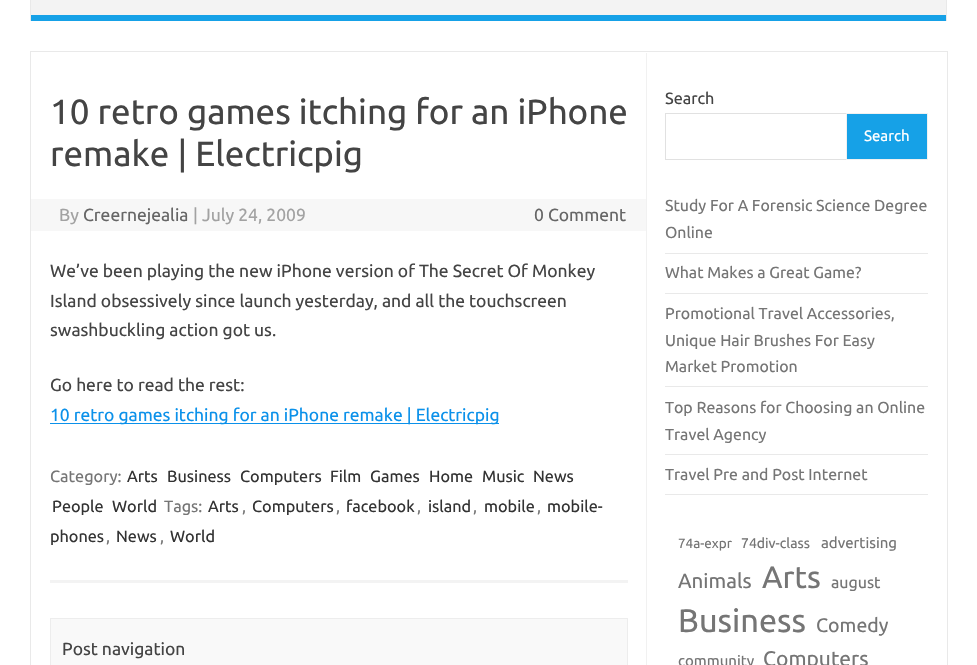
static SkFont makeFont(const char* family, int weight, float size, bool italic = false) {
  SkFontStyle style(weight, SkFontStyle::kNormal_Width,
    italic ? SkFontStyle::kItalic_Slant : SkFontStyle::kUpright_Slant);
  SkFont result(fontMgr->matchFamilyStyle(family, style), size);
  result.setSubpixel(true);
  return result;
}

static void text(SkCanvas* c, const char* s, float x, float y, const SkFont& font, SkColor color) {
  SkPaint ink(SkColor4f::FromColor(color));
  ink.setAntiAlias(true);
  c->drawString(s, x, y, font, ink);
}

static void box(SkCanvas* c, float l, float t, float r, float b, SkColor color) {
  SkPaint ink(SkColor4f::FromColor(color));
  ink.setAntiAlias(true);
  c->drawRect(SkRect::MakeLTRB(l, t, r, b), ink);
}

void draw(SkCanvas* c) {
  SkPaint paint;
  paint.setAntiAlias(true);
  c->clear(0xffffffff);
  box(c, 946, 0, 947, 21, 0xffe9e9e9);
  box(c, 30, 0, 31, 21, 0xffe9e9e9);
  box(c, 31, 0, 946, 15, 0xfff3f3f3);
  box(c, 31, 15, 946, 21, 0xff16a1e7);
  paint.setStyle(SkPaint::kStroke_Style);
  paint.setStrokeWidth(1);
  paint.setColor(0xffe9e9e9);
  c->drawRect(SkRect::MakeLTRB(30.5f, 51.5f, 947.5f, 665.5f), paint);
  box(c, 646, 53, 647, 665, 0xfff1f1f1);
  box(c, 50, 580, 628, 583, 0xfff3f3f3);
  SkFont face1 = makeFont("Ubuntu", 400, 35);
  text(c, "10 retro games itching for an iPhone", 50, 124, face1, 0xff444444);
  text(c, "remake | Electricpig", 50, 166, face1, 0xff444444);
  box(c, 31, 199, 646, 231, 0xfff7f7f7);
  SkFont face2 = makeFont("Ubuntu", 400, 17.5f);
  text(c, "By", 59, 221, face2, 0xffa2a2a2);
  text(c, "Creernejealia", 83, 221, face2, 0xff666666);
  text(c, "| July 24, 2009", 193, 221, face2, 0xffa2a2a2);
  text(c, "0 Comment", 534, 221, face2, 0xff666666);
  text(c, "We’ve been playing the new iPhone version of The Secret Of Monkey", 50, 277, face2, 0xff444444);
  text(c, "Island obsessively since launch yesterday, and all the touchscreen", 50, 307, face2, 0xff444444);
  text(c, "swashbuckling action got us.", 50, 336, face2, 0xff444444);
  text(c, "Go here to read the rest:", 50, 391, face2, 0xff444444);
  box(c, 50, 423, 499, 424, 0xff0b91ea);
  text(c, "10 retro games itching for an iPhone remake | Electricpig", 50, 421, face2, 0xff0b91ea);
  SkFont face3 = makeFont("Ubuntu", 400, 16.25f);
  text(c, "Category:", 50, 482, face3, 0xff757575);
  text(c, "Arts", 127, 482, face3, 0xff333333);
  text(c, "Business", 167, 482, face3, 0xff333333);
  text(c, "Computers", 240, 482, face3, 0xff333333);
  text(c, "Film", 330, 482, face3, 0xff333333);
  text(c, "Games", 370, 482, face3, 0xff333333);
  text(c, "Home", 429, 482, face3, 0xff333333);
  text(c, "Music", 482, 482, face3, 0xff333333);
  text(c, "News", 533, 482, face3, 0xff333333);
  text(c, "People", 52, 512, face3, 0xff333333);
  text(c, "World", 112, 512, face3, 0xff333333);
  text(c, "Tags:", 164, 512, face3, 0xff757575);
  text(c, "Arts", 208, 512, face3, 0xff333333);
  text(c, ",", 242, 512, face3, 0xff757575);
  text(c, "Computers", 252, 512, face3, 0xff333333);
  text(c, ",", 336, 512, face3, 0xff757575);
  text(c, "facebook", 346, 512, face3, 0xff333333);
  text(c, ",", 417, 512, face3, 0xff757575);
  text(c, "island", 428, 512, face3, 0xff333333);
  text(c, ",", 473, 512, face3, 0xff757575);
  text(c, "mobile", 484, 512, face3, 0xff333333);
  text(c, ",", 537, 512, face3, 0xff757575);
  text(c, "mobile-", 547, 512, face3, 0xff333333);
  text(c, "phones", 50, 542, face3, 0xff333333);
  text(c, ",", 106, 542, face3, 0xff757575);
  text(c, "News", 116, 542, face3, 0xff333333);
  text(c, ",", 160, 542, face3, 0xff757575);
  text(c, "World", 170, 542, face3, 0xff333333);
  paint.setStyle(SkPaint::kFill_Style);
  paint.setColor(0xfff9f9f9);
  c->drawRect(SkRect::MakeLTRB(50.5f, 618.5f, 627.5f, 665.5f), paint);
  paint.setStyle(SkPaint::kStroke_Style);
  paint.setColor(0xffededed);
  c->drawRect(SkRect::MakeLTRB(50.5f, 618.5f, 627.5f, 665.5f), paint);
  text(c, "Post navigation", 62, 655, face2, 0xff444444);
  text(c, "Search", 665, 104, face3, 0xff444444);
  paint.setColor(0xffe1e1e1);
  c->drawRect(SkRect::MakeLTRB(665.5f, 113.5f, 847.5f, 159.5f), paint);
  paint.setStyle(SkPaint::kFill_Style);
  paint.setColor(0xff16a1e7);
  c->drawRect(SkRect::MakeLTRB(846.5f, 113.5f, 927.5f, 159.5f), paint);
  paint.setStyle(SkPaint::kStroke_Style);
  paint.setColor(0xfff1f1f1);
  c->drawRect(SkRect::MakeLTRB(846.5f, 113.5f, 927.5f, 159.5f), paint);
  SkFont face4 = makeFont("Ubuntu", 400, 15);
  text(c, "Search", 864, 141, face4, 0xffffffff);
  box(c, 665, 253, 928, 254, 0xffe9e9e9);
  SkFont face5 = makeFont("Ubuntu", 400, 15.9f);
  text(c, "Study For A Forensic Science Degree", 665, 211, face5, 0xff757575);
  text(c, "Online", 665, 238, face5, 0xff757575);
  box(c, 665, 293, 928, 294, 0xffe9e9e9);
  text(c, "What Makes a Great Game?", 665, 278, face5, 0xff757575);
  box(c, 665, 386, 928, 387, 0xffe9e9e9);
  text(c, "Promotional Travel Accessories,", 665, 319, face5, 0xff757575);
  text(c, "Unique Hair Brushes For Easy", 665, 346, face5, 0xff757575);
  text(c, "Market Promotion", 665, 372, face5, 0xff757575);
  box(c, 665, 454, 928, 455, 0xffe9e9e9);
  text(c, "Top Reasons for Choosing an Online", 665, 413, face5, 0xff757575);
  text(c, "Travel Agency", 665, 440, face5, 0xff757575);
  box(c, 665, 494, 928, 495, 0xffe9e9e9);
  text(c, "Travel Pre and Post Internet", 665, 480, face5, 0xff757575);
  SkFont face6 = makeFont("Ubuntu", 400, 13.5f);
  text(c, "74a-expr", 678, 548, face6, 0xff757575);
  SkFont face7 = makeFont("Ubuntu", 400, 14);
  text(c, "74div-class", 741, 548, face7, 0xff757575);
  text(c, "advertising", 821, 548, face4, 0xff757575);
  SkFont face8 = makeFont("Ubuntu", 400, 20.5f);
  text(c, "Animals", 678, 588, face8, 0xff757575);
  SkFont face9 = makeFont("Ubuntu", 400, 31);
  text(c, "Arts", 762, 588, face9, 0xff757575);
  SkFont face10 = makeFont("Ubuntu", 400, 16);
  text(c, "august", 831, 588, face10, 0xff757575);
  SkFont face11 = makeFont("Ubuntu", 400, 32.5f);
  text(c, "Business", 678, 632, face11, 0xff757575);
  SkFont face12 = makeFont("Ubuntu", 400, 19.5f);
  text(c, "Comedy", 816, 632, face12, 0xff757575);
  text(c, "community", 678, 666, face4, 0xff757575);
  SkFont face13 = makeFont("Ubuntu", 400, 21);
  text(c, "Computers", 763, 666, face13, 0xff757575);
}
